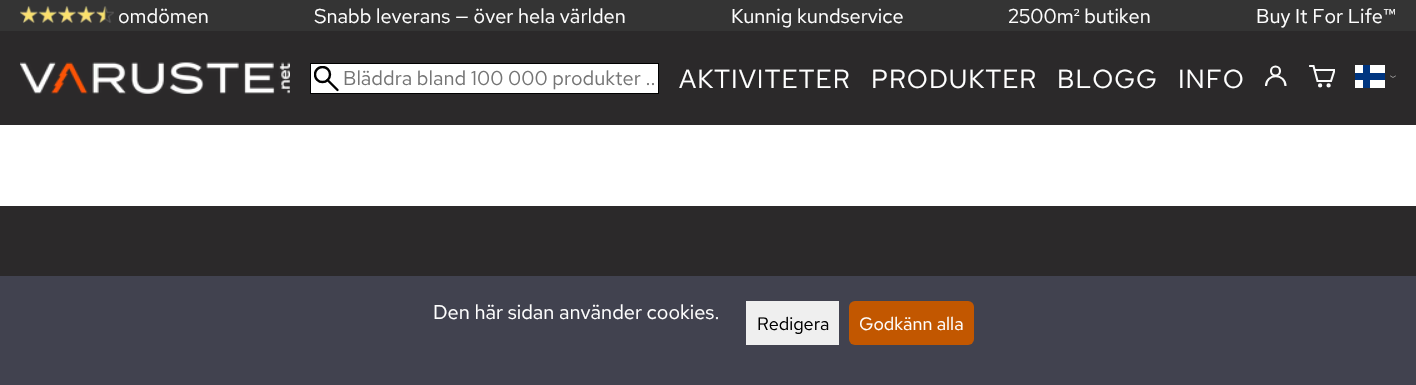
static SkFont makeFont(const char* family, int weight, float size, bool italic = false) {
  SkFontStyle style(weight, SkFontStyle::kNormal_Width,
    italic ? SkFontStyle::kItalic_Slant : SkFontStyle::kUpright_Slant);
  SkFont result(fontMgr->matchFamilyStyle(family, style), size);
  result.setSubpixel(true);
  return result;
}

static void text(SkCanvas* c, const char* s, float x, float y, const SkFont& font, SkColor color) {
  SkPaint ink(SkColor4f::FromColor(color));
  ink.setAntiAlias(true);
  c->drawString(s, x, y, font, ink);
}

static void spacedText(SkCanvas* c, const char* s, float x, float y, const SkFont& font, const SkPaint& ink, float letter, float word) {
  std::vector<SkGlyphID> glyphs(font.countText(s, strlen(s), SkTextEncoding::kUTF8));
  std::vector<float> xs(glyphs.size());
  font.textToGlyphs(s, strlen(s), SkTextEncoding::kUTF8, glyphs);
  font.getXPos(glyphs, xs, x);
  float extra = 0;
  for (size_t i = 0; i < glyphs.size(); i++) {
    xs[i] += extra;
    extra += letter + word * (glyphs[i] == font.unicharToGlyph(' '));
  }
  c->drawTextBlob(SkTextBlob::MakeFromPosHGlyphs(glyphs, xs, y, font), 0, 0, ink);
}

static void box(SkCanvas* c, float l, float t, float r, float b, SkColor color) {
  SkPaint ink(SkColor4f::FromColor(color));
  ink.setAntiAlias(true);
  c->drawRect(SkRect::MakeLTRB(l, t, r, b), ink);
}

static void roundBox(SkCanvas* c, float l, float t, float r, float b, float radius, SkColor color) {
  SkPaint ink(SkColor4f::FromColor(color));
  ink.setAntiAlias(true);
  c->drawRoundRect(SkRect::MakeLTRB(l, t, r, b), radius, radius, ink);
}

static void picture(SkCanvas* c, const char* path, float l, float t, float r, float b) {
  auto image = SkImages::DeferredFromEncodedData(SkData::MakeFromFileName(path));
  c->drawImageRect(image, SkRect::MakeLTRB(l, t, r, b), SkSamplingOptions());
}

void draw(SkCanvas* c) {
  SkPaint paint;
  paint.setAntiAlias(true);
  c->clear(0xffffffff);
  box(c, 0, 0, 1416, 31, 0xff343434);
  picture(c, "img_01.png", 20, 6, 114, 23);
  SkFont face1 = makeFont("Red Hat Text", 400, 20);
  text(c, "omdömen", 118, 23, face1, 0xffffffff);
  text(c, "Snabb leverans — över hela världen", 314, 23, face1, 0xffffffff);
  text(c, "Kunnig kundservice", 731, 23, face1, 0xffffffff);
  text(c, "2500m² butiken", 1008, 23, face1, 0xffffffff);
  text(c, "Buy It For Life™", 1256, 23, face1, 0xffffffff);
  box(c, 0, 31, 1416, 125, 0xff2b292a);
  picture(c, "img_02.png", 20, 62, 290, 94);
  paint.setColor(0xffffffff);
  c->drawRect(SkRect::MakeLTRB(310.5f, 63.5f, 658.5f, 93.5f), paint);
  paint.setStyle(SkPaint::kStroke_Style);
  paint.setStrokeWidth(1);
  paint.setColor(0xff000000);
  c->drawRect(SkRect::MakeLTRB(310.5f, 63.5f, 658.5f, 93.5f), paint);
  paint.setStrokeWidth(2.4f);
  paint.setStrokeCap(SkPaint::kRound_Cap);
  c->drawPath(SkPathBuilder().moveTo(337.5f, 90).lineTo(327.5f, 80).detach(), paint);
  c->save();
  c->clipRect(SkRect::MakeLTRB(314, 66, 339, 91));
  paint.setStrokeCap(SkPaint::kButt_Cap);
  c->drawCircle(322.5f, 74.5f, 7.5f, paint);
  c->restore();
  text(c, "Bläddra bland 100 000 produkter ..", 343, 85, face1, 0xff757575);
  SkFont face2 = makeFont("Red Hat Text", 400, 26);
  paint.setStyle(SkPaint::kFill_Style);
  paint.setColor(0xffffffff);
  spacedText(c, "AKTIVITETER", 679, 88, face2, paint, 1, 0);
  spacedText(c, "PRODUKTER", 871, 88, face2, paint, 1, 0);
  spacedText(c, "BLOGG", 1057, 88, face2, paint, 1, 0);
  spacedText(c, "INFO", 1178, 88, face2, paint, 1, 0);
  paint.setStyle(SkPaint::kStroke_Style);
  paint.setStrokeWidth(2.1f);
  paint.setColor(0xfffafafa);
  c->drawCircle(1275.5f, 71, 4.5f, paint);
  c->drawPath(SkPathBuilder().moveTo(1266, 86).cubicTo(1266, 73, 1285.5f, 73, 1285.5f, 86).detach(), paint);
  c->save();
  c->clipRect(SkRect::MakeLTRB(1309, 65, 1335, 88));
  paint.setStrokeCap(SkPaint::kRound_Cap);
  c->drawPath(SkPathBuilder().moveTo(1314.5f, 70).lineTo(1334.5f, 70).lineTo(1331, 81).lineTo(1317.5f, 81).lineTo(1313.5f, 66).lineTo(1310, 66).detach(), paint);
  c->restore();
  paint.setStrokeCap(SkPaint::kButt_Cap);
  c->drawCircle(1320.1f, 85.4f, 1.1f, paint);
  c->drawCircle(1328.6f, 85.4f, 1.1f, paint);
  box(c, 1355, 65, 1385, 88, 0xffffffff);
  box(c, 1355, 73, 1385, 80, 0xff003580);
  box(c, 1363, 65, 1370, 88, 0xff003580);
  paint.setStrokeWidth(0.5f);
  paint.setStrokeCap(SkPaint::kRound_Cap);
  c->drawPath(SkPathBuilder().moveTo(1390.5f, 76).lineTo(1393, 77.5f).lineTo(1395.5f, 76).detach(), paint);
  box(c, 0, 206, 1416, 276, 0xff2b292a);
  box(c, 0, 276, 1416, 385, 0xff41424f);
  text(c, "Den här sidan använder cookies.", 433, 319, face1, 0xffffffff);
  box(c, 746, 301, 839, 345, 0xffefefef);
  SkFont face3 = makeFont("Red Hat Text", 400, 18);
  text(c, "Redigera", 757, 330, face3, 0xff000000);
  roundBox(c, 849, 301, 974, 345, 6, 0xffc25700);
  text(c, "Godkänn alla", 859, 330, face3, 0xffffffff);
}
